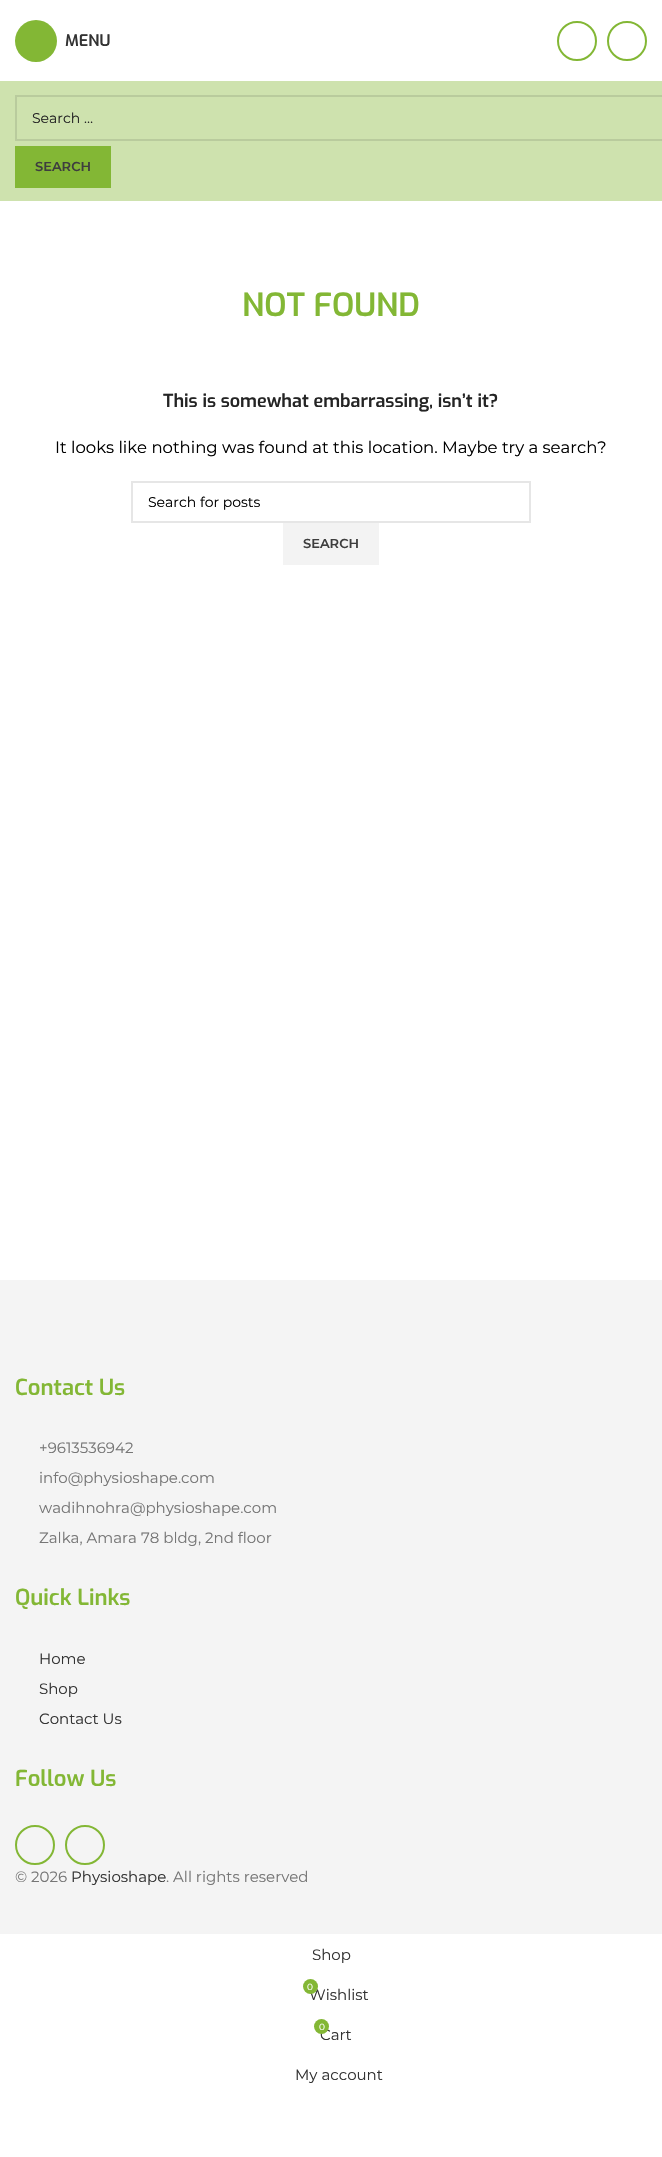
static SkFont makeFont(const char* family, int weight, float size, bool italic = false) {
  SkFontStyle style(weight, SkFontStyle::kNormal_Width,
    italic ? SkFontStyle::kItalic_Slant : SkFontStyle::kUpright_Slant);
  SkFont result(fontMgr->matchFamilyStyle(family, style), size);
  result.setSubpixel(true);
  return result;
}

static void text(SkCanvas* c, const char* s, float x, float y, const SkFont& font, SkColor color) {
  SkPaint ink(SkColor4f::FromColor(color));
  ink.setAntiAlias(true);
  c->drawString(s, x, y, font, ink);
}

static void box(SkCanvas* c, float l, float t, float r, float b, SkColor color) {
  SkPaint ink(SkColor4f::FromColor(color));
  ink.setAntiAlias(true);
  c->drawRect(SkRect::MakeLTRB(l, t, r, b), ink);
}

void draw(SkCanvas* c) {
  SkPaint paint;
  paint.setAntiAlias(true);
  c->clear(0xffffffff);
  paint.setColor(0xff83b735);
  c->drawCircle(36, 41, 21, paint);
  SkFont face1 = makeFont("Exo", 600, 16);
  text(c, "MENU", 65, 46, face1, 0xff333333);
  paint.setStyle(SkPaint::kStroke_Style);
  paint.setStrokeWidth(2);
  c->drawCircle(577, 41, 19, paint);
  c->drawCircle(627, 41, 19, paint);
  box(c, 0, 81, 662, 201, 0xffcee2ae);
  paint.setColor(0xffb9cb9d);
  c->drawRect(SkRect::MakeLTRB(16, 96, 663, 140), paint);
  SkFont face2 = makeFont("Montserrat", 400, 14);
  text(c, "Search …", 32, 123, face2, 0xff242424);
  box(c, 15, 146, 111, 188, 0xff83b735);
  SkFont face3 = makeFont("Montserrat", 600, 13);
  text(c, "SEARCH", 35, 171, face3, 0xff3e3e3e);
  SkFont face4 = makeFont("Exo", 600, 32);
  text(c, "NOT FOUND", 242, 316, face4, 0xff83b735);
  SkFont face5 = makeFont("Exo", 600, 18);
  text(c, "This is somewhat embarrassing, isn’t it?", 163, 407, face5, 0xff242424);
  SkFont face6 = makeFont("Montserrat", 400, 16.5f);
  text(c, "It looks like nothing was found at this location. Maybe try a search?", 55, 453, face6, 0xff000000);
  paint.setColor(0xffe6e6e6);
  c->drawRect(SkRect::MakeLTRB(132, 482, 530, 522), paint);
  text(c, "Search for posts", 148, 507, face2, 0xff000000);
  box(c, 283, 523, 379, 565, 0xfff3f3f3);
  text(c, "SEARCH", 303, 548, face3, 0xff3e3e3e);
  box(c, 0, 1280, 662, 1934, 0xfff4f4f4);
  SkFont face7 = makeFont("Exo", 600, 22);
  text(c, "Contact Us", 15, 1395, face7, 0xff83b735);
  SkFont face8 = makeFont("Montserrat", 400, 15);
  text(c, "+9613536942", 39, 1453, face8, 0xff767676);
  text(c, "info@physioshape.com", 39, 1483, face8, 0xff767676);
  text(c, "wadihnohra@physioshape.com", 39, 1513, face8, 0xff767676);
  text(c, "Zalka, Amara 78 bldg, 2nd floor", 39, 1543, face8, 0xff767676);
  text(c, "Quick Links", 15, 1605, face7, 0xff83b735);
  text(c, "Home", 39, 1664, face8, 0xff333333);
  text(c, "Shop", 39, 1694, face8, 0xff333333);
  text(c, "Contact Us", 39, 1724, face8, 0xff333333);
  text(c, "Follow Us", 15, 1786, face7, 0xff83b735);
  paint.setColor(0xff83b735);
  c->drawCircle(35, 1845, 19, paint);
  c->drawCircle(85, 1845, 19, paint);
  text(c, "© 2026", 15, 1882, face8, 0xff767676);
  text(c, "Physioshape", 71, 1882, face8, 0xff333333);
  text(c, ". All rights reserved", 166, 1882, face8, 0xff767676);
  text(c, "Shop", 312, 1960, face8, 0xff333333);
  text(c, "Wishlist", 309, 2000, face8, 0xff333333);
  paint.setStyle(SkPaint::kFill_Style);
  c->drawCircle(310.5f, 1986.5f, 7.5f, paint);
  SkFont face9 = makeFont("Montserrat", 400, 9);
  text(c, "0", 307, 1990, face9, 0xffffffff);
  text(c, "Cart", 320, 2040, face8, 0xff333333);
  c->drawCircle(321.5f, 2026.5f, 7.5f, paint);
  text(c, "0", 319, 2030, face9, 0xffffffff);
  text(c, "My account", 295, 2080, face8, 0xff333333);
}
